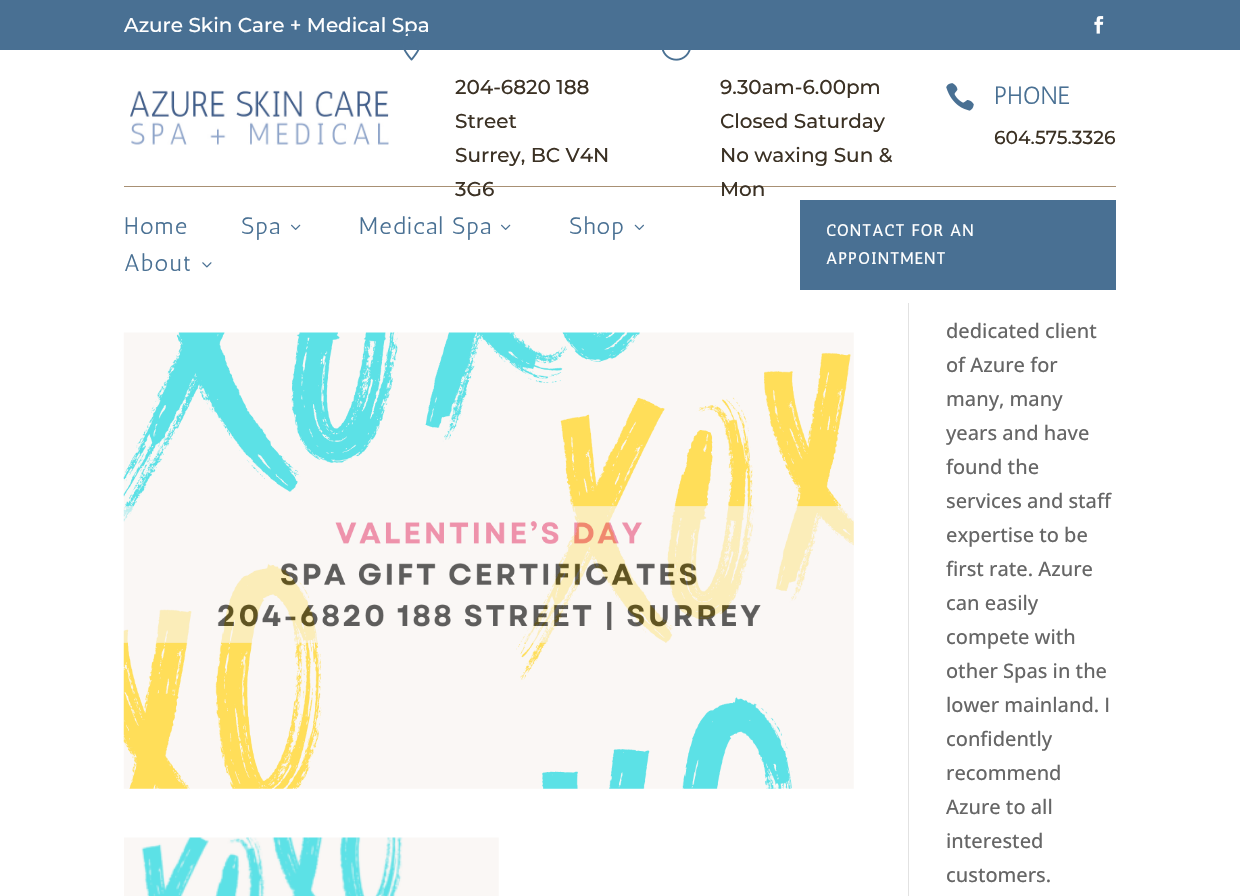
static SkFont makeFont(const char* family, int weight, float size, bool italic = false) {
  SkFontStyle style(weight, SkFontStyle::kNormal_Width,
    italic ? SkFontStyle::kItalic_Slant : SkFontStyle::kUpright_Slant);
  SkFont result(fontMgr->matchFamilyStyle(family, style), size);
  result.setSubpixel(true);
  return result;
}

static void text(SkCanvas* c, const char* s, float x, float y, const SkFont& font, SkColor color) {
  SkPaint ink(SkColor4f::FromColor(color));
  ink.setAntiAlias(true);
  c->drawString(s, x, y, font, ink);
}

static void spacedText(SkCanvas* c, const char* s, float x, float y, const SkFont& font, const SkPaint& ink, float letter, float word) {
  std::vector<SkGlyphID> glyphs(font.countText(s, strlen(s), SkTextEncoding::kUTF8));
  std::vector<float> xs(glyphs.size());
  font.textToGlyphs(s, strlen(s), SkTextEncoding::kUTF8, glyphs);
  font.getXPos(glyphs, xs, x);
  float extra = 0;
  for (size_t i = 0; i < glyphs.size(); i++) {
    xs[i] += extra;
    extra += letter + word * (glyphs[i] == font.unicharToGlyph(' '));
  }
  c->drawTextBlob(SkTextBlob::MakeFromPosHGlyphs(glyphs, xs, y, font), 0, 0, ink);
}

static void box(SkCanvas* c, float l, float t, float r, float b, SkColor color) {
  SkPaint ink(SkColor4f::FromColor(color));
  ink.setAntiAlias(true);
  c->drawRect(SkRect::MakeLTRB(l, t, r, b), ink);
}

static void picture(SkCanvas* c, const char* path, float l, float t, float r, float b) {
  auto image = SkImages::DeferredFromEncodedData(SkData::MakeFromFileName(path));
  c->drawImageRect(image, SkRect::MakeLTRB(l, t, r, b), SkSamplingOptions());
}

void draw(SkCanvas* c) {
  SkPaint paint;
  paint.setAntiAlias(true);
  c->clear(0xffffffff);
  box(c, 0, 0, 1240, 50, 0xff497093);
  SkFont face1 = makeFont("Montserrat", 100, 20);
  text(c, "Azure Skin Care + Medical Spa", 124, 32, face1, 0xffffffff);
  picture(c, "img_01.png", 1094, 16, 1104, 34);
  box(c, 124, 186, 1116, 187, 0xffa89074);
  picture(c, "img_02.png", 130, 90, 389, 145);
  picture(c, "img_03.png", 403, 30, 420, 61);
  text(c, "204-6820 188", 455, 94, face1, 0xff3b3124);
  text(c, "Street", 455, 128, face1, 0xff3b3124);
  text(c, "Surrey, BC V4N", 455, 162, face1, 0xff3b3124);
  text(c, "3G6", 455, 196, face1, 0xff3b3124);
  picture(c, "img_04.png", 662, 50, 691, 61);
  text(c, "9.30am-6.00pm", 720, 94, face1, 0xff3b3124);
  text(c, "Closed Saturday", 720, 128, face1, 0xff3b3124);
  text(c, "No waxing Sun &", 720, 162, face1, 0xff3b3124);
  text(c, "Mon", 720, 196, face1, 0xff3b3124);
  picture(c, "img_05.png", 946, 83, 974, 111);
  SkFont face2 = makeFont("Antic", 400, 25);
  text(c, "PHONE", 994, 104, face2, 0xff497093);
  SkFont face3 = makeFont("Montserrat", 100, 18.75f);
  text(c, "604.575.3326", 994, 144, face3, 0xff3b3124);
  SkFont face4 = makeFont("Antic", 400, 23.75f);
  paint.setColor(0xff497093);
  spacedText(c, "Home", 124, 234, face4, paint, 1.25f, 0);
  spacedText(c, "Spa", 241, 234, face4, paint, 1.25f, 0);
  picture(c, "img_06.png", 291, 224, 301, 230);
  spacedText(c, "Medical Spa", 359, 234, face4, paint, 1.25f, 0);
  picture(c, "img_06.png", 501, 224, 511, 230);
  spacedText(c, "Shop", 569, 234, face4, paint, 1.25f, 0);
  picture(c, "img_07.png", 634, 224, 644, 230);
  spacedText(c, "About", 124, 271, face4, paint, 1.25f, 0);
  picture(c, "img_08.png", 202, 262, 212, 268);
  box(c, 800, 200, 1116, 290, 0xff497093);
  SkFont face5 = makeFont("Antic", 700, 16.25f);
  paint.setColor(0xffffffff);
  spacedText(c, "CONTACT FOR AN", 826, 236, face5, paint, 1.25f, 0);
  spacedText(c, "APPOINTMENT", 826, 264, face5, paint, 1.25f, 0);
  box(c, 908, 303, 909, 896, 0xffe2e2e2);
  picture(c, "img_09.png", 123, 332, 854, 789);
  picture(c, "img_10.png", 124, 837, 499, 896);
  SkFont face6 = makeFont("Open Sans", 500, 20);
  text(c, "dedicated client", 946, 338, face6, 0xff666666);
  text(c, "of Azure for", 946, 372, face6, 0xff666666);
  text(c, "many, many", 946, 406, face6, 0xff666666);
  text(c, "years and have", 946, 440, face6, 0xff666666);
  text(c, "found the", 946, 474, face6, 0xff666666);
  text(c, "services and staff", 946, 508, face6, 0xff666666);
  text(c, "expertise to be", 946, 542, face6, 0xff666666);
  text(c, "first rate. Azure", 946, 576, face6, 0xff666666);
  text(c, "can easily", 946, 610, face6, 0xff666666);
  text(c, "compete with", 946, 644, face6, 0xff666666);
  text(c, "other Spas in the", 946, 678, face6, 0xff666666);
  text(c, "lower mainland. I", 946, 712, face6, 0xff666666);
  text(c, "confidently", 946, 746, face6, 0xff666666);
  text(c, "recommend", 946, 780, face6, 0xff666666);
  text(c, "Azure to all", 946, 814, face6, 0xff666666);
  text(c, "interested", 946, 848, face6, 0xff666666);
  text(c, "customers.", 946, 882, face6, 0xff666666);
}
